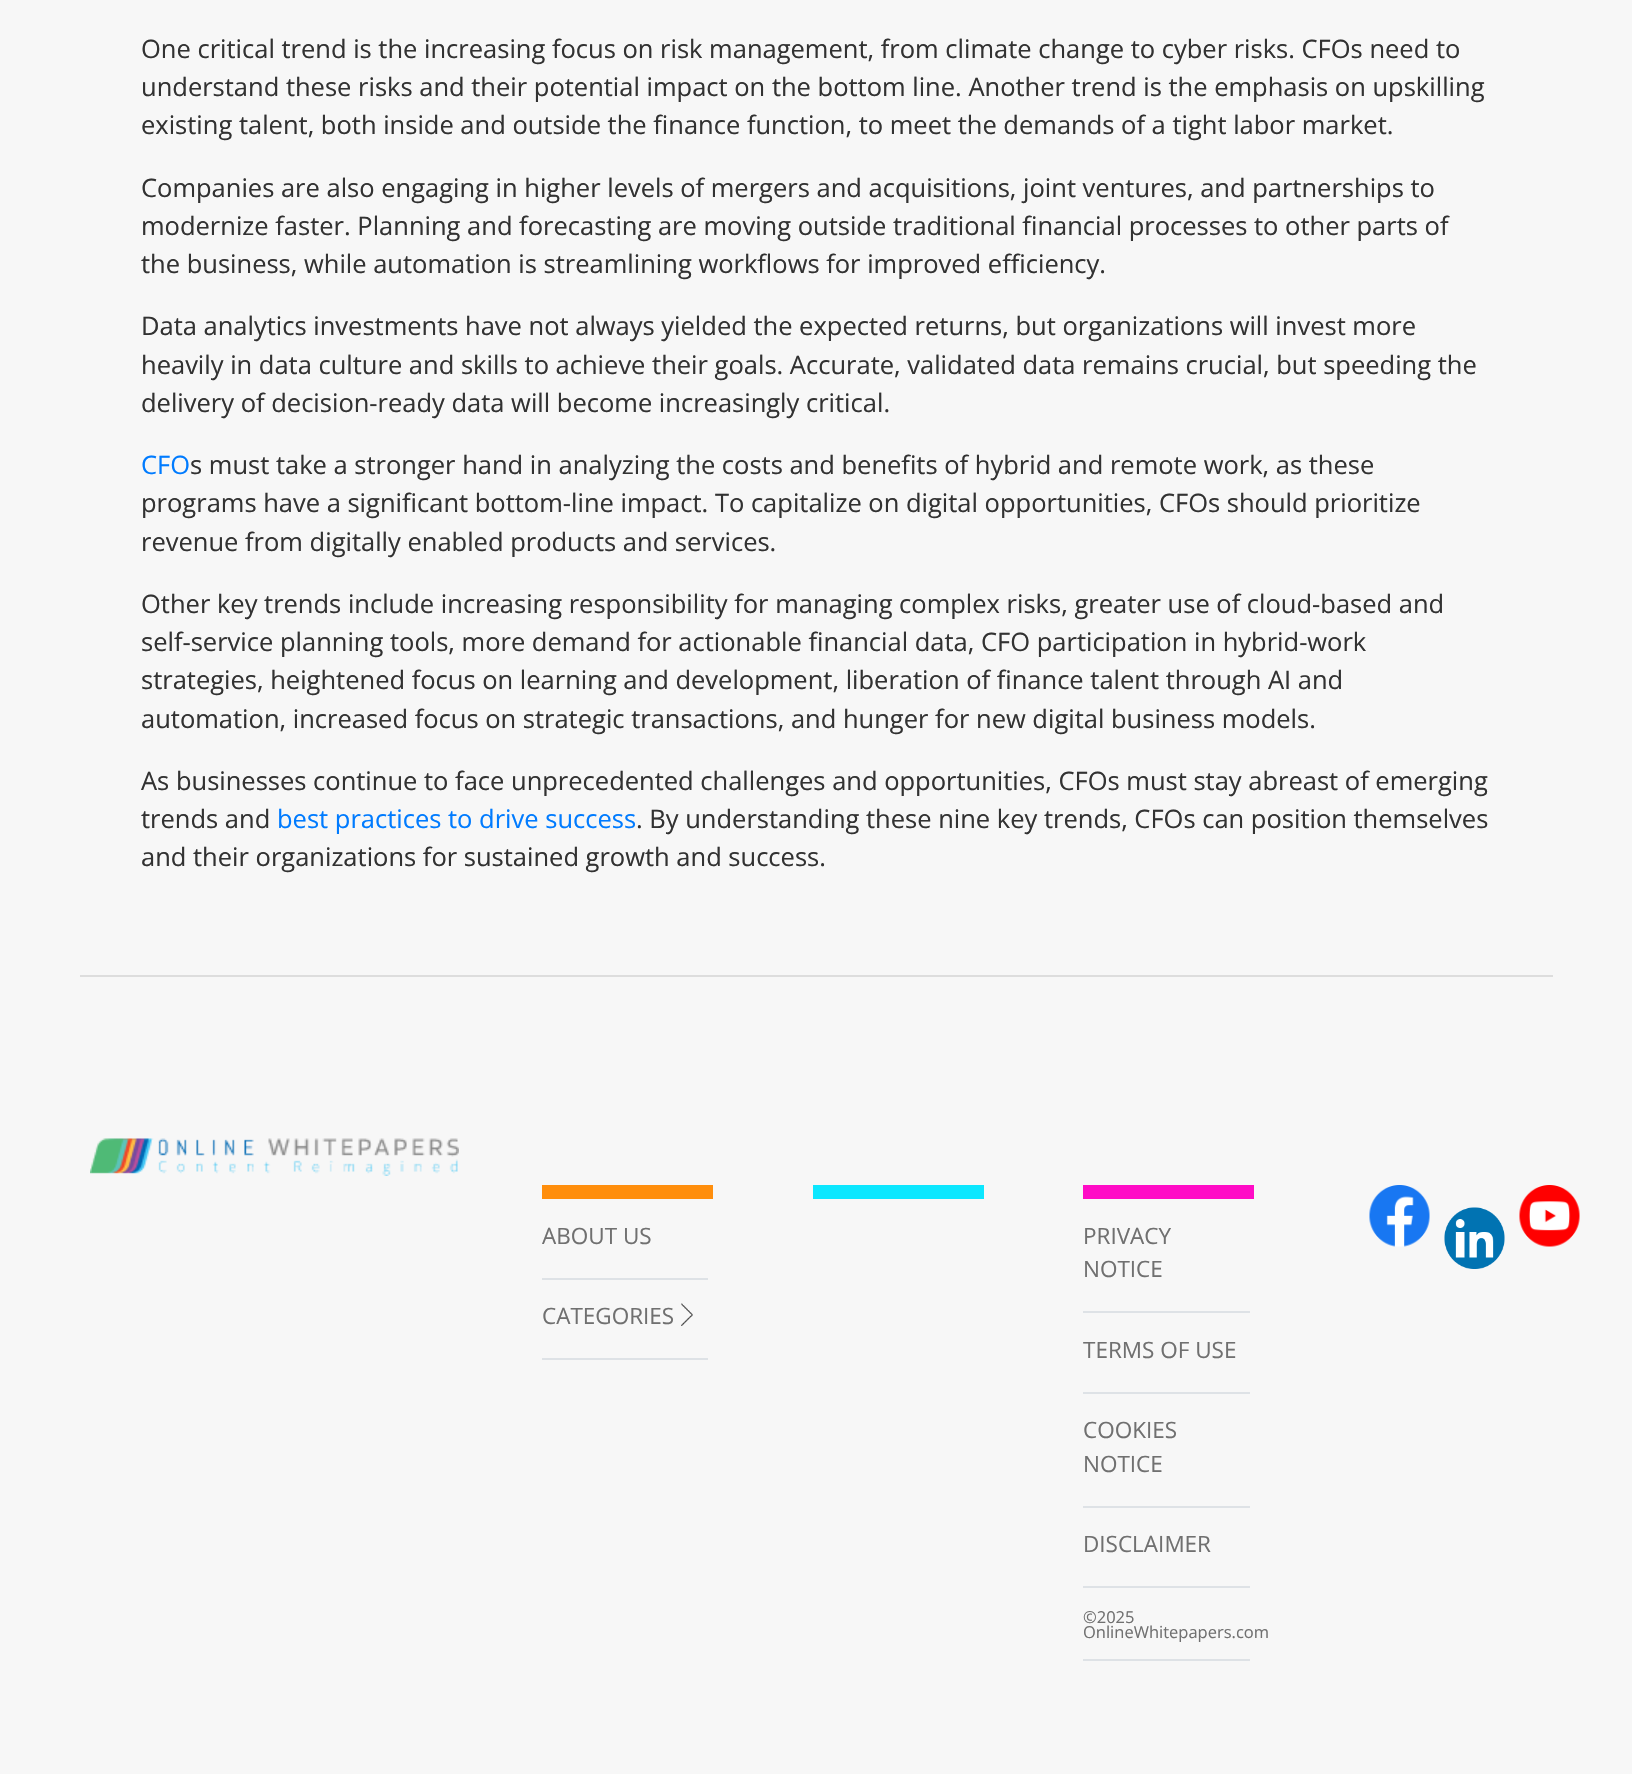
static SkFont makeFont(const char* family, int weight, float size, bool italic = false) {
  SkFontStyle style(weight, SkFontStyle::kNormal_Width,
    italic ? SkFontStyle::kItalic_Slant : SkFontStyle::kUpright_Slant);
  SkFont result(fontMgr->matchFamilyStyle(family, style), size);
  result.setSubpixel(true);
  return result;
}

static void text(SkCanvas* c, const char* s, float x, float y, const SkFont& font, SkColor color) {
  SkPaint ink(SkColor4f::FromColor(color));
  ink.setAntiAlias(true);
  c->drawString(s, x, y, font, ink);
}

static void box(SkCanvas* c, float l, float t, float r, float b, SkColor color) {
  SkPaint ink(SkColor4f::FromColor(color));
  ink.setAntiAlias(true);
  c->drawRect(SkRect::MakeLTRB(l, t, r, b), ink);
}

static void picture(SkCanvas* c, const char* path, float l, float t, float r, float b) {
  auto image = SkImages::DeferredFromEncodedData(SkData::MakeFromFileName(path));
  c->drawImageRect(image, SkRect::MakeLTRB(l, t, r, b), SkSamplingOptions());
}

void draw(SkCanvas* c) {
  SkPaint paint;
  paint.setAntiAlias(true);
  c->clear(0xfff7f7f7);
  SkFont face1 = makeFont("Open Sans", 400, 25.5f);
  text(c, "One critical trend is the increasing focus on risk management, from climate change to cyber risks. CFOs need to", 141, 58, face1, 0xff323232);
  text(c, "understand these risks and their potential impact on the bottom line. Another trend is the emphasis on upskilling", 141, 96, face1, 0xff323232);
  text(c, "existing talent, both inside and outside the finance function, to meet the demands of a tight labor market.", 141, 134, face1, 0xff323232);
  text(c, "Companies are also engaging in higher levels of mergers and acquisitions, joint ventures, and partnerships to", 141, 197, face1, 0xff323232);
  text(c, "modernize faster. Planning and forecasting are moving outside traditional financial processes to other parts of", 141, 235, face1, 0xff323232);
  text(c, "the business, while automation is streamlining workflows for improved efficiency.", 141, 273, face1, 0xff323232);
  text(c, "Data analytics investments have not always yielded the expected returns, but organizations will invest more", 141, 335, face1, 0xff323232);
  text(c, "heavily in data culture and skills to achieve their goals. Accurate, validated data remains crucial, but speeding the", 141, 374, face1, 0xff323232);
  text(c, "delivery of decision-ready data will become increasingly critical.", 141, 412, face1, 0xff323232);
  text(c, "CFO", 141, 474, face1, 0xff007bff);
  text(c, "s must take a stronger hand in analyzing the costs and benefits of hybrid and remote work, as these", 190, 474, face1, 0xff323232);
  text(c, "programs have a significant bottom-line impact. To capitalize on digital opportunities, CFOs should prioritize", 141, 512, face1, 0xff323232);
  text(c, "revenue from digitally enabled products and services.", 141, 551, face1, 0xff323232);
  text(c, "Other key trends include increasing responsibility for managing complex risks, greater use of cloud-based and", 141, 613, face1, 0xff323232);
  text(c, "self-service planning tools, more demand for actionable financial data, CFO participation in hybrid-work", 141, 651, face1, 0xff323232);
  text(c, "strategies, heightened focus on learning and development, liberation of finance talent through AI and", 141, 689, face1, 0xff323232);
  text(c, "automation, increased focus on strategic transactions, and hunger for new digital business models.", 141, 728, face1, 0xff323232);
  text(c, "As businesses continue to face unprecedented challenges and opportunities, CFOs must stay abreast of emerging", 141, 790, face1, 0xff323232);
  text(c, "trends and", 141, 828, face1, 0xff323232);
  text(c, "best practices to drive success", 277, 828, face1, 0xff007bff);
  text(c, ". By understanding these nine key trends, CFOs can position themselves", 636, 828, face1, 0xff323232);
  text(c, "and their organizations for sustained growth and success.", 141, 866, face1, 0xff323232);
  box(c, 80, 975, 1553, 977, 0xffdddddd);
  picture(c, "img_01.png", 90, 1138, 459, 1176);
  box(c, 542, 1185, 713, 1199, 0xffff8e0c);
  box(c, 542, 1278, 708, 1280, 0xffdee2e6);
  SkFont face2 = makeFont("Open Sans", 400, 22.5f);
  text(c, "ABOUT US", 542, 1244, face2, 0xff707070);
  box(c, 542, 1358, 708, 1360, 0xffdee2e6);
  text(c, "CATEGORIES", 542, 1324, face2, 0xff707070);
  picture(c, "img_02.png", 681, 1303, 693, 1326);
  box(c, 813, 1185, 984, 1199, 0xff0ce7ff);
  box(c, 1083, 1185, 1254, 1199, 0xffff0cc6);
  box(c, 1083, 1311, 1250, 1313, 0xffdee2e6);
  text(c, "PRIVACY", 1083, 1244, face2, 0xff707070);
  text(c, "NOTICE", 1083, 1277, face2, 0xff707070);
  box(c, 1083, 1392, 1250, 1394, 0xffdee2e6);
  text(c, "TERMS OF USE", 1083, 1358, face2, 0xff707070);
  box(c, 1083, 1506, 1250, 1508, 0xffdee2e6);
  text(c, "COOKIES", 1083, 1438, face2, 0xff707070);
  text(c, "NOTICE", 1083, 1472, face2, 0xff707070);
  box(c, 1083, 1586, 1250, 1588, 0xffdee2e6);
  text(c, "DISCLAIMER", 1083, 1552, face2, 0xff707070);
  box(c, 1083, 1659, 1250, 1661, 0xffdee2e6);
  SkFont face3 = makeFont("Open Sans", 400, 16.5f);
  text(c, "©2025", 1083, 1623, face3, 0xff707070);
  text(c, "OnlineWhitepapers.com", 1083, 1638, face3, 0xff707070);
  picture(c, "img_03.png", 1369, 1185, 1430, 1247);
  picture(c, "img_04.png", 1444, 1207, 1505, 1269);
  picture(c, "img_05.png", 1519, 1185, 1580, 1247);
}
